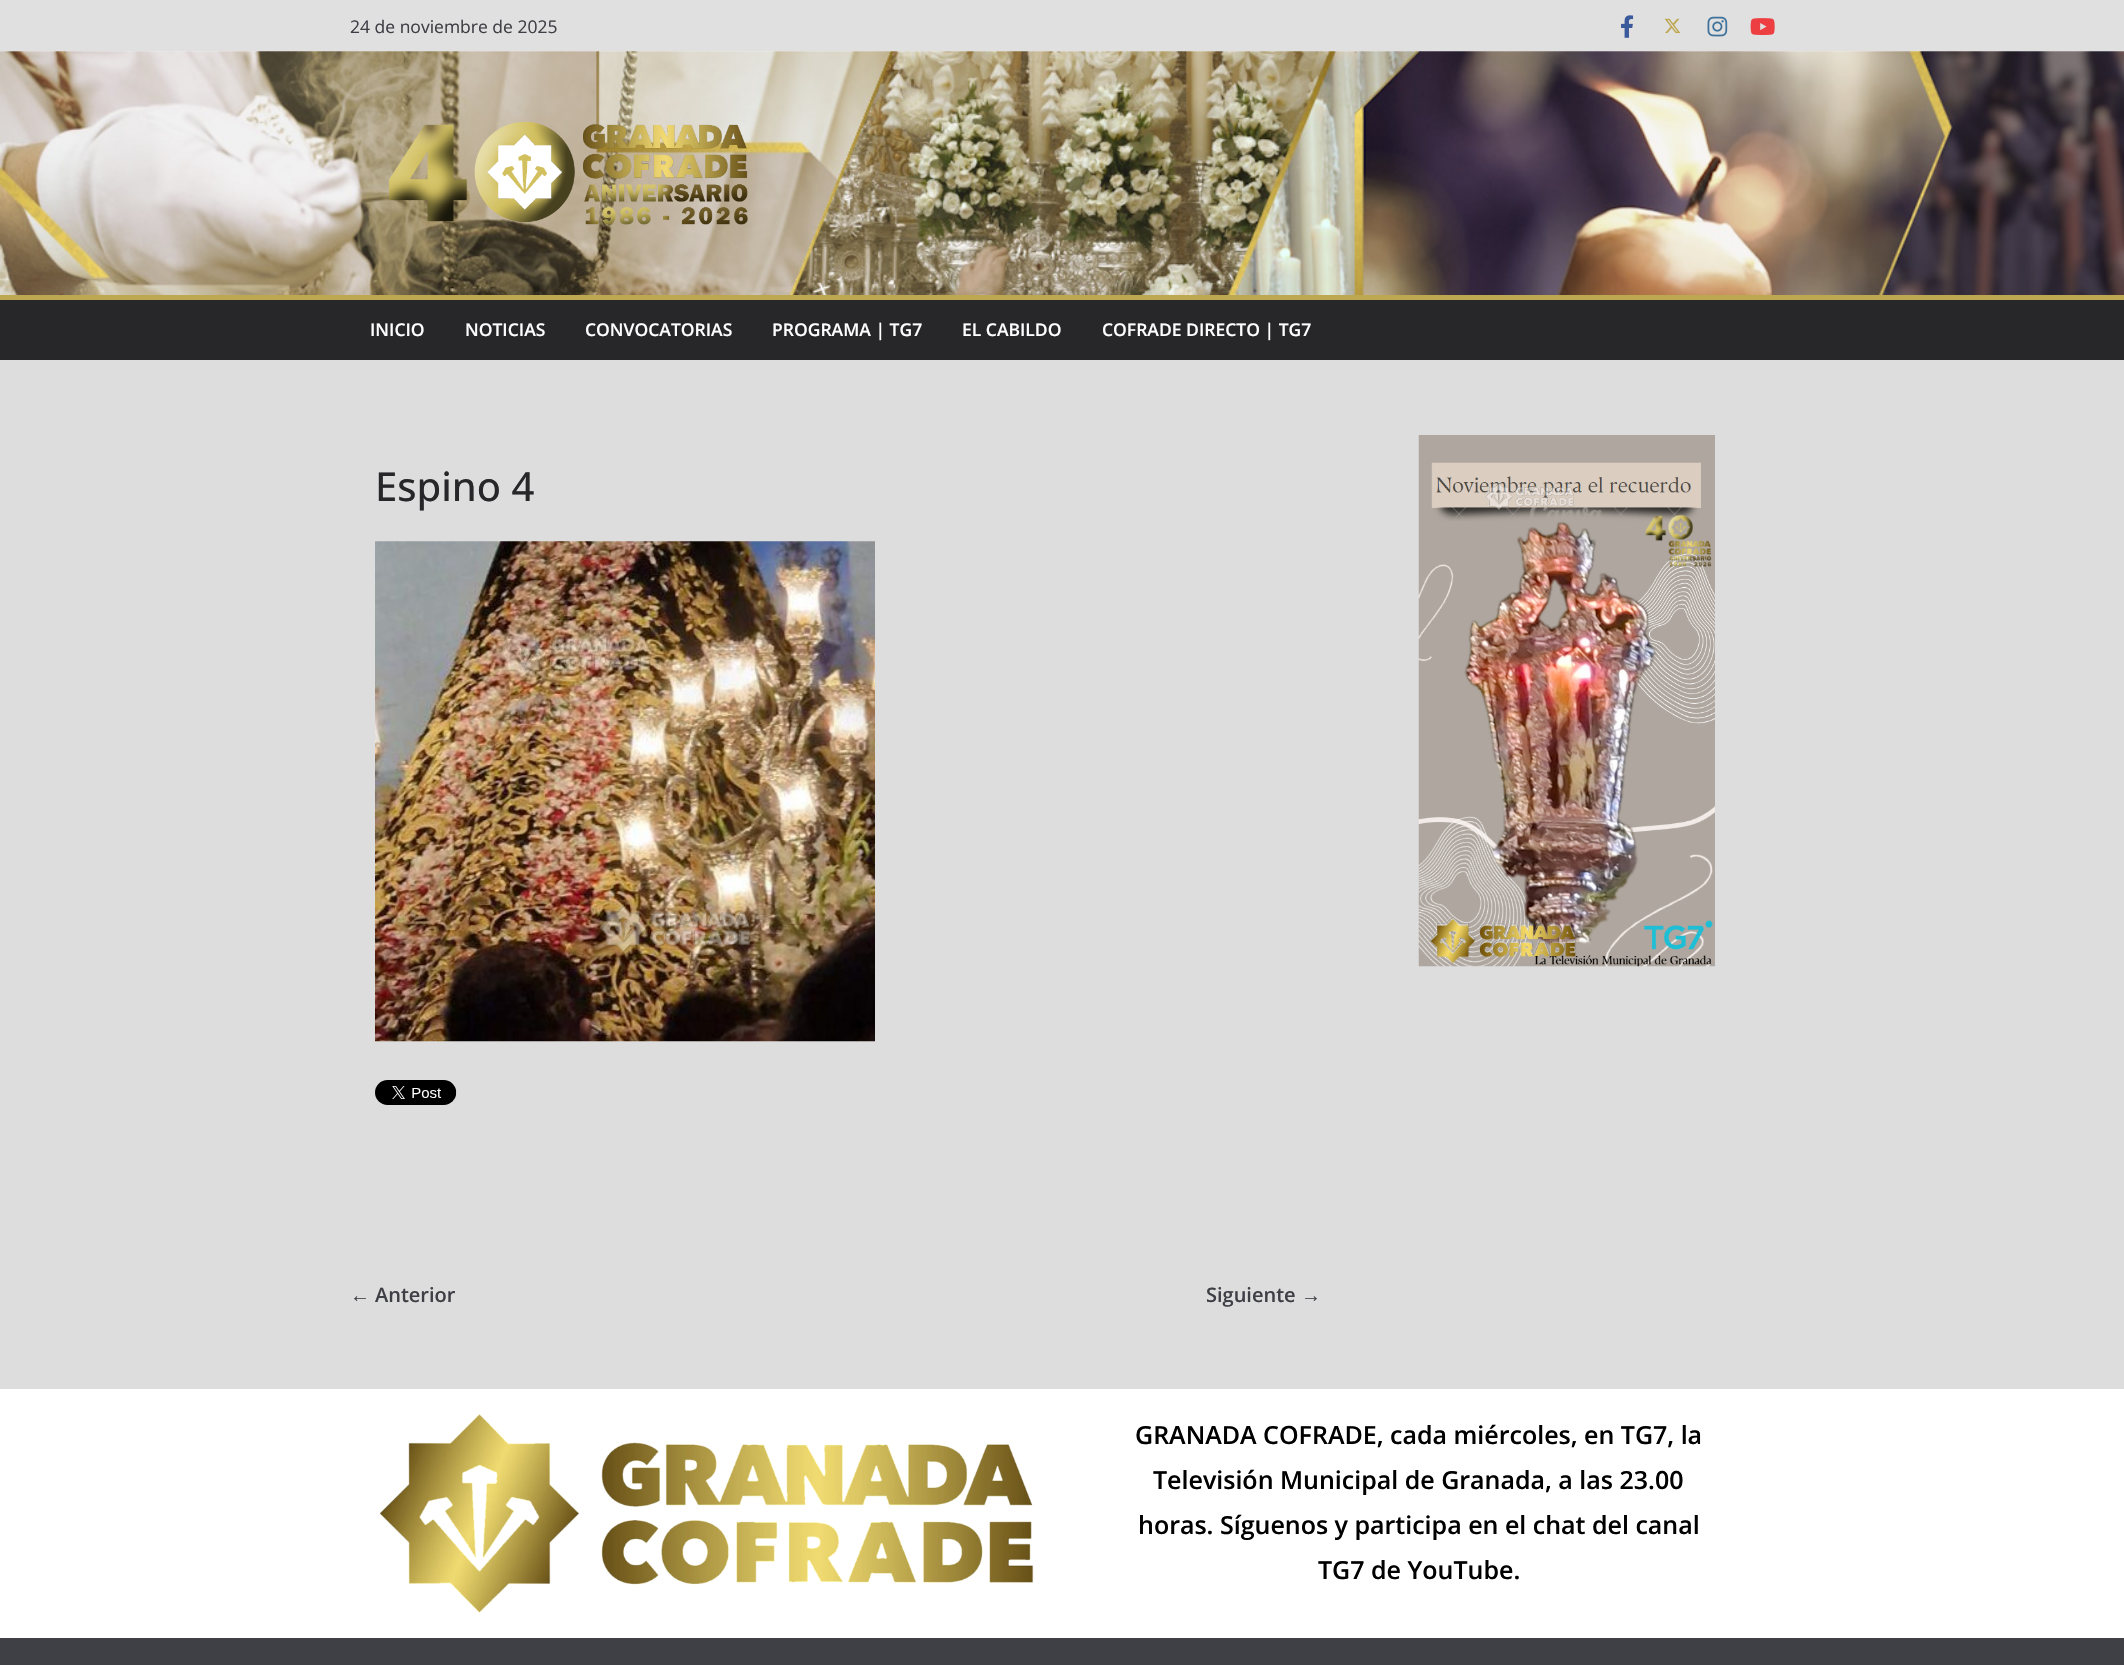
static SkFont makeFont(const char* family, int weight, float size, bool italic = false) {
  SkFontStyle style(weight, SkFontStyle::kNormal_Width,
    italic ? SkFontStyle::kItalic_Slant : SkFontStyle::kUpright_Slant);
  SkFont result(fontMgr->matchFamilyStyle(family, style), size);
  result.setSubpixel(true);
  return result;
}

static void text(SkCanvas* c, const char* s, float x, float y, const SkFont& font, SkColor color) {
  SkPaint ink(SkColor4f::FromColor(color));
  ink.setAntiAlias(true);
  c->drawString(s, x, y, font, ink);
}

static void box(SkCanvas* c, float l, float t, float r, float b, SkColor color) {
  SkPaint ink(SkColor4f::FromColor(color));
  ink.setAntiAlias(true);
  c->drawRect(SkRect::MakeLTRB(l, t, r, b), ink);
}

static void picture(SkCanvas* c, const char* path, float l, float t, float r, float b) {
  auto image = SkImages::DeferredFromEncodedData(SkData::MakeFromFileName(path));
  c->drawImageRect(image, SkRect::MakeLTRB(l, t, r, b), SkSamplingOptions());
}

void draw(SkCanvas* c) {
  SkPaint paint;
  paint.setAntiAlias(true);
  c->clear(0xffffffff);
  paint.setColor(0x1a000000);
  paint.setMaskFilter(SkMaskFilter::MakeBlur(kNormal_SkBlurStyle, 1));
  c->drawRect(SkRect::MakeLTRB(0, 0, 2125, 51), paint);
  paint.setMaskFilter(nullptr);
  box(c, 0, 0, 2124, 51, 0xffe0e0e0);
  SkFont face1 = makeFont("Open Sans", 400, 17.5f);
  text(c, "24 de noviembre de 2025", 350, 33, face1, 0xff3f3f46);
  picture(c, "img_01.png", 1621, 15, 1634, 38);
  picture(c, "img_02.png", 1664, 18, 1681, 34);
  picture(c, "img_03.png", 1707, 16, 1728, 37);
  picture(c, "img_04.png", 1750, 18, 1775, 35);
  picture(c, "img_05.png", 0, 51, 2124, 295);
  picture(c, "img_06.png", 389, 121, 748, 225);
  box(c, 0, 300, 2124, 360, 0xff27272a);
  box(c, 0, 295, 2124, 300, 0xffbda751);
  SkFont face2 = makeFont("Open Sans", 600, 17.5f);
  text(c, "INICIO", 370, 336, face2, 0xffffffff);
  text(c, "NOTICIAS", 465, 336, face2, 0xffffffff);
  text(c, "CONVOCATORIAS", 585, 336, face2, 0xffffffff);
  text(c, "PROGRAMA | TG7", 772, 336, face2, 0xffffffff);
  text(c, "EL CABILDO", 962, 336, face2, 0xffffffff);
  text(c, "COFRADE DIRECTO | TG7", 1102, 336, face2, 0xffffffff);
  box(c, 0, 360, 2124, 1389, 0xffdddddd);
  SkFont face3 = makeFont("Open Sans", 500, 40);
  text(c, "Espino 4", 375, 501, face3, 0xff27272a);
  picture(c, "img_07.png", 375, 541, 875, 1042);
  picture(c, "img_08.png", 375, 1080, 457, 1105);
  SkFont face4 = makeFont("Liberation Serif", 700, 20);
  text(c, "←", 350, 1302, face4, 0xff3f3f46);
  SkFont face5 = makeFont("Open Sans", 600, 20);
  text(c, "Anterior", 375, 1302, face5, 0xff3f3f46);
  text(c, "Siguiente", 1206, 1302, face5, 0xff3f3f46);
  text(c, "→", 1301, 1302, face4, 0xff3f3f46);
  picture(c, "img_09.png", 1418, 435, 1715, 967);
  picture(c, "img_10.png", 380, 1414, 1034, 1613);
  SkFont face6 = makeFont("Open Sans", 600, 25);
  text(c, "GRANADA COFRADE, cada miércoles, en TG7, la", 1135, 1444, face6, 0xff000000);
  text(c, "Televisión Municipal de Granada, a las 23.00", 1153, 1489, face6, 0xff000000);
  text(c, "horas. Síguenos y participa en el chat del canal", 1138, 1534, face6, 0xff000000);
  text(c, "TG7 de YouTube.", 1318, 1579, face6, 0xff000000);
  box(c, 0, 1638, 2124, 1665, 0xff3f3f46);
}
